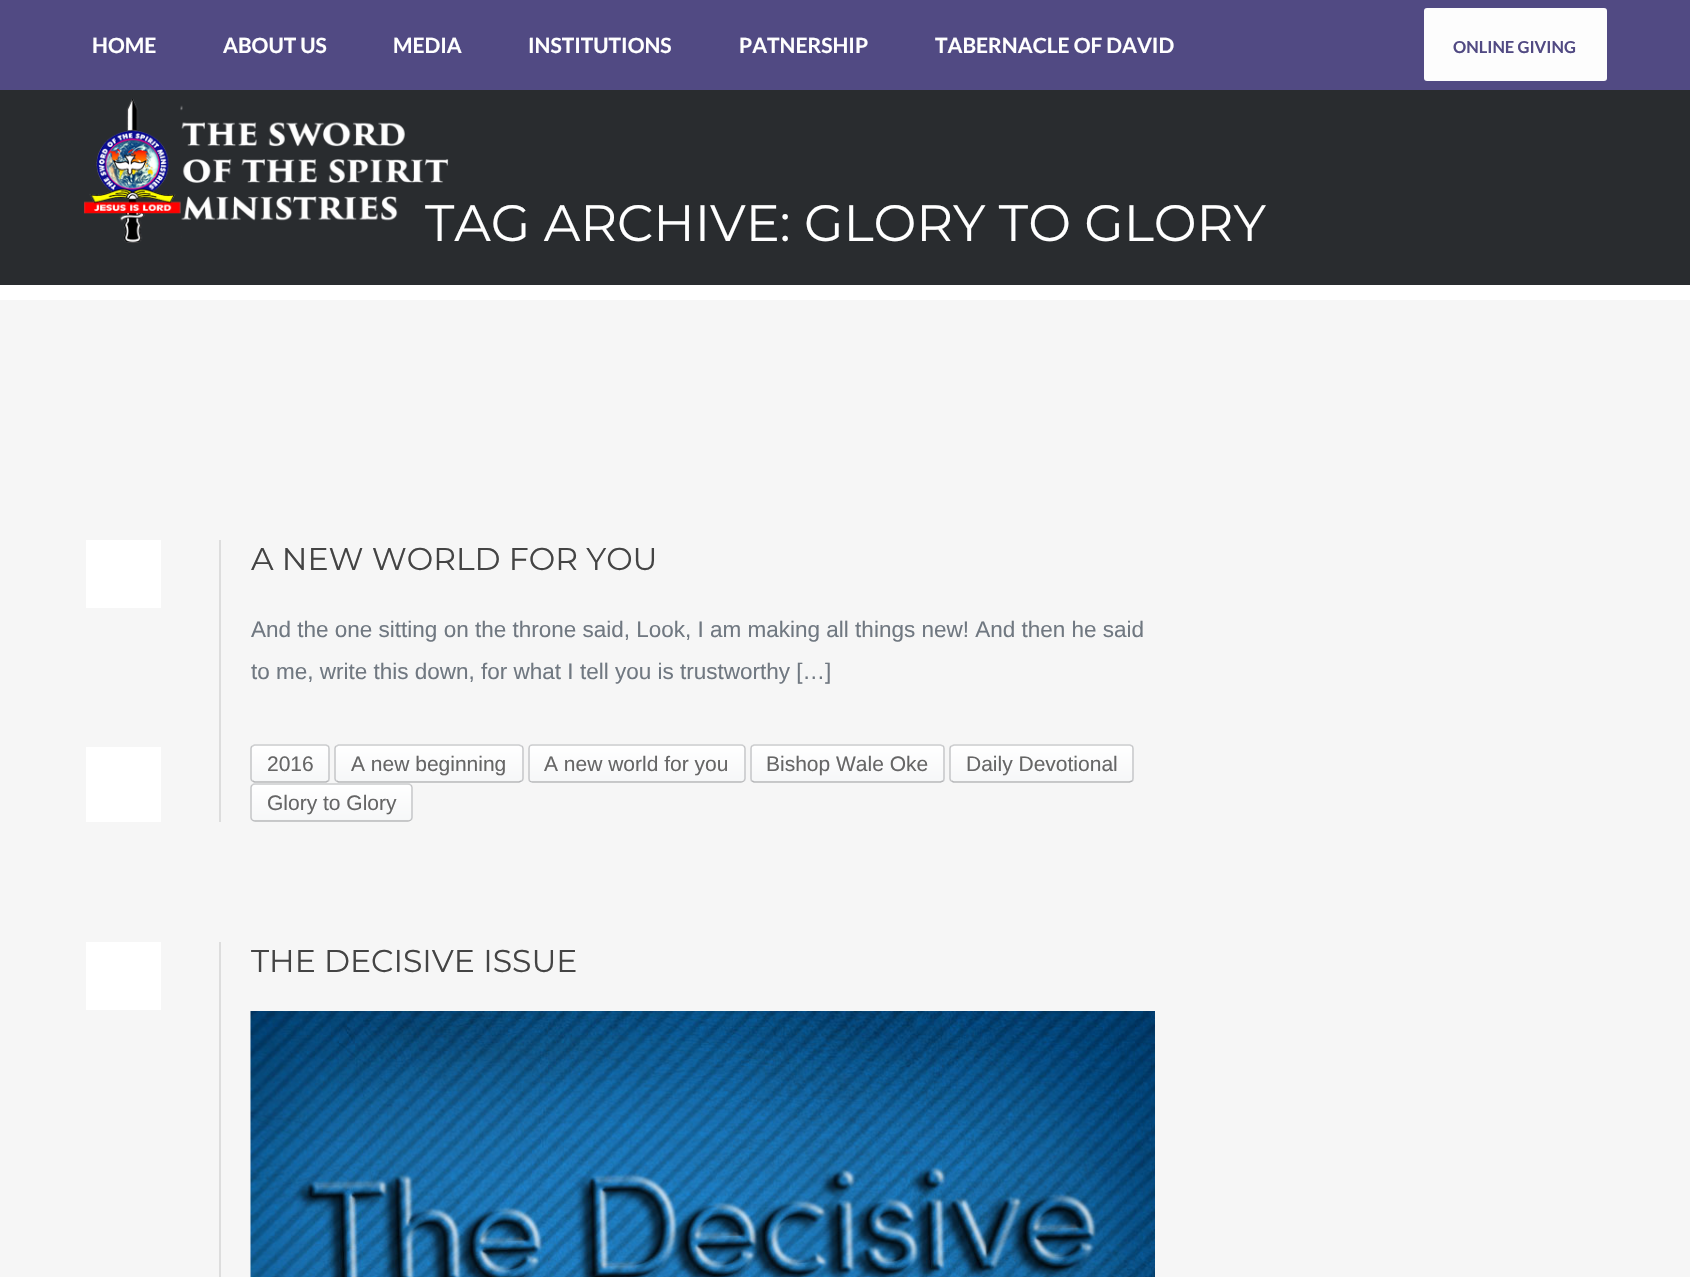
static SkFont makeFont(const char* family, int weight, float size, bool italic = false) {
  SkFontStyle style(weight, SkFontStyle::kNormal_Width,
    italic ? SkFontStyle::kItalic_Slant : SkFontStyle::kUpright_Slant);
  SkFont result(fontMgr->matchFamilyStyle(family, style), size);
  result.setSubpixel(true);
  return result;
}

static void text(SkCanvas* c, const char* s, float x, float y, const SkFont& font, SkColor color) {
  SkPaint ink(SkColor4f::FromColor(color));
  ink.setAntiAlias(true);
  c->drawString(s, x, y, font, ink);
}

static void box(SkCanvas* c, float l, float t, float r, float b, SkColor color) {
  SkPaint ink(SkColor4f::FromColor(color));
  ink.setAntiAlias(true);
  c->drawRect(SkRect::MakeLTRB(l, t, r, b), ink);
}

static void roundBox(SkCanvas* c, float l, float t, float r, float b, float radius, SkColor color) {
  SkPaint ink(SkColor4f::FromColor(color));
  ink.setAntiAlias(true);
  c->drawRoundRect(SkRect::MakeLTRB(l, t, r, b), radius, radius, ink);
}

static void picture(SkCanvas* c, const char* path, float l, float t, float r, float b) {
  auto image = SkImages::DeferredFromEncodedData(SkData::MakeFromFileName(path));
  c->drawImageRect(image, SkRect::MakeLTRB(l, t, r, b), SkSamplingOptions());
}

void draw(SkCanvas* c) {
  SkPaint paint;
  paint.setAntiAlias(true);
  c->clear(0xfff6f6f6);
  box(c, 0, 0, 1690, 90, 0xff514a83);
  SkFont face1 = makeFont("Lato", 700, 21);
  text(c, "HOME", 92, 53, face1, 0xffffffff);
  text(c, "ABOUT US", 223, 53, face1, 0xffffffff);
  text(c, "MEDIA", 393, 53, face1, 0xffffffff);
  text(c, "INSTITUTIONS", 528, 53, face1, 0xffffffff);
  text(c, "PATNERSHIP", 739, 53, face1, 0xffffffff);
  text(c, "TABERNACLE OF DAVID", 935, 53, face1, 0xffffffff);
  roundBox(c, 1424, 8, 1607, 81, 3, 0xfffdfdfd);
  SkFont face2 = makeFont("Lato", 700, 16.5f);
  text(c, "ONLINE GIVING", 1453, 53, face2, 0xff514a83);
  box(c, 0, 90, 1690, 285, 0xff292c2f);
  SkFont face3 = makeFont("Montserrat", 100, 51);
  text(c, "TAG ARCHIVE: GLORY TO GLORY", 425, 241, face3, 0xffffffff);
  picture(c, "img_01.png", 84, 99, 449, 243);
  box(c, 0, 285, 1690, 300, 0xffffffff);
  box(c, 219, 540, 221, 822, 0xffdddddd);
  box(c, 86, 540, 161, 608, 0xffffffff);
  SkFont face4 = makeFont("Montserrat", 100, 31.5f);
  text(c, "A NEW WORLD FOR YOU", 251, 570, face4, 0xff444444);
  SkFont face5 = makeFont("Liberation Sans", 400, 22.5f);
  text(c, "And the one sitting on the throne said, Look, I am making all things new! And then he said", 251, 637, face5, 0xff707881);
  text(c, "to me, write this down, for what I tell you is trustworthy […]", 251, 679, face5, 0xff707881);
  box(c, 86, 747, 161, 822, 0xffffffff);
  c->save();
  c->clipPath(SkPathBuilder().moveTo(256, 744).lineTo(325, 744).cubicTo(328, 744, 330, 746, 330, 749).lineTo(330, 778).cubicTo(330, 781, 328, 783, 325, 783).lineTo(256, 783).cubicTo(253, 783, 251, 781, 251, 778).lineTo(251, 749).cubicTo(251, 746, 253, 744, 256, 744).close().detach(), true);
  {
    const SkColor colors[] = {0xffffffff, 0xfff6f7f8};
    const float stops[] = {0, 1};
    const SkPoint ends[] = {{290, 746}, {290, 782}};
    paint.setShader(SkGradientShader::MakeLinear(ends, colors, stops, 2, SkTileMode::kClamp));
    paint.setAlpha(255);
  }
  c->drawRect(SkRect::MakeLTRB(251, 746, 330, 782), paint);
  {
    const SkColor colors[] = {0xffffffff, 0xfff6f7f8};
    const float stops[] = {0, 1};
    const SkPoint ends[] = {{290, 782}, {290, 818}};
    paint.setShader(SkGradientShader::MakeLinear(ends, colors, stops, 2, SkTileMode::kClamp));
    paint.setAlpha(255);
  }
  c->drawRect(SkRect::MakeLTRB(251, 782, 330, 783), paint);
  c->restore();
  paint.setStyle(SkPaint::kStroke_Style);
  paint.setStrokeWidth(1.5f);
  paint.setShader(nullptr);
  paint.setColor(0xffcdced0);
  c->drawPath(SkPathBuilder().moveTo(252.5f, 746).lineTo(254.5f, 745).lineTo(326, 745).lineTo(328, 746).detach(), paint);
  paint.setColor(0xffc5c6c8);
  c->drawPath(SkPathBuilder().moveTo(328, 746).cubicTo(329, 746.5f, 329, 747.5f, 329, 748.5f).lineTo(329, 778.5f).cubicTo(329, 779.5f, 329, 780.5f, 328, 781).detach(), paint);
  paint.setColor(0xffb6b7b9);
  c->drawPath(SkPathBuilder().moveTo(328, 781).lineTo(326, 782).lineTo(254.5f, 782).lineTo(252.5f, 781).detach(), paint);
  paint.setColor(0xffc5c6c8);
  c->drawPath(SkPathBuilder().moveTo(252.5f, 781).cubicTo(251.5f, 780.5f, 251, 779.5f, 251, 778.5f).lineTo(251, 748.5f).cubicTo(251, 747.5f, 251.5f, 746.5f, 252.5f, 746).detach(), paint);
  SkFont face6 = makeFont("Liberation Sans", 400, 21);
  text(c, "2016", 267, 771, face6, 0xff666666);
  c->save();
  c->clipPath(SkPathBuilder().moveTo(340, 744).lineTo(519, 744).cubicTo(522, 744, 524, 746, 524, 749).lineTo(524, 778).cubicTo(524, 781, 522, 783, 519, 783).lineTo(340, 783).cubicTo(337, 783, 335, 781, 335, 778).lineTo(335, 749).cubicTo(335, 746, 337, 744, 340, 744).close().detach(), true);
  paint.setStyle(SkPaint::kFill_Style);
  {
    const SkColor colors[] = {0xffffffff, 0xfff6f7f8};
    const float stops[] = {0, 1};
    const SkPoint ends[] = {{429, 746}, {429, 782}};
    paint.setShader(SkGradientShader::MakeLinear(ends, colors, stops, 2, SkTileMode::kClamp));
    paint.setAlpha(255);
  }
  c->drawRect(SkRect::MakeLTRB(335, 746, 524, 782), paint);
  {
    const SkColor colors[] = {0xffffffff, 0xfff6f7f8};
    const float stops[] = {0, 1};
    const SkPoint ends[] = {{429, 782}, {429, 818}};
    paint.setShader(SkGradientShader::MakeLinear(ends, colors, stops, 2, SkTileMode::kClamp));
    paint.setAlpha(255);
  }
  c->drawRect(SkRect::MakeLTRB(335, 782, 524, 783), paint);
  c->restore();
  paint.setStyle(SkPaint::kStroke_Style);
  paint.setShader(nullptr);
  paint.setColor(0xffcdced0);
  c->drawPath(SkPathBuilder().moveTo(336.5f, 746).lineTo(338.5f, 745).lineTo(489, 745).lineTo(519, 745).lineTo(521.5f, 746).detach(), paint);
  paint.setColor(0xffc5c6c8);
  c->drawPath(SkPathBuilder().moveTo(521.5f, 746).cubicTo(522.5f, 746.5f, 523, 747.5f, 523, 748.5f).lineTo(523, 778.5f).cubicTo(523, 779.5f, 522.5f, 780.5f, 521.5f, 781).detach(), paint);
  paint.setColor(0xffb6b7b9);
  c->drawPath(SkPathBuilder().moveTo(521.5f, 781).lineTo(519, 782).lineTo(338.5f, 782).lineTo(336.5f, 781).detach(), paint);
  paint.setColor(0xffc5c6c8);
  c->drawPath(SkPathBuilder().moveTo(336.5f, 781).cubicTo(335.5f, 780.5f, 335, 779.5f, 335, 778.5f).lineTo(335, 748.5f).cubicTo(335, 747.5f, 335.5f, 746.5f, 336.5f, 746).detach(), paint);
  text(c, "A new beginning", 351, 771, face6, 0xff666666);
  c->save();
  c->clipPath(SkPathBuilder().moveTo(533, 744).lineTo(741, 744).cubicTo(744, 744, 746, 746, 746, 749).lineTo(746, 778).cubicTo(746, 781, 744, 783, 741, 783).lineTo(533, 783).cubicTo(530, 783, 528, 781, 528, 778).lineTo(528, 749).cubicTo(528, 746, 530, 744, 533, 744).close().detach(), true);
  paint.setStyle(SkPaint::kFill_Style);
  {
    const SkColor colors[] = {0xffffffff, 0xfff6f7f8};
    const float stops[] = {0, 1};
    const SkPoint ends[] = {{637, 746}, {637, 782}};
    paint.setShader(SkGradientShader::MakeLinear(ends, colors, stops, 2, SkTileMode::kClamp));
    paint.setAlpha(255);
  }
  c->drawRect(SkRect::MakeLTRB(528, 746, 746, 782), paint);
  {
    const SkColor colors[] = {0xffffffff, 0xfff6f7f8};
    const float stops[] = {0, 1};
    const SkPoint ends[] = {{637, 782}, {637, 818}};
    paint.setShader(SkGradientShader::MakeLinear(ends, colors, stops, 2, SkTileMode::kClamp));
    paint.setAlpha(255);
  }
  c->drawRect(SkRect::MakeLTRB(528, 782, 746, 783), paint);
  c->restore();
  paint.setStyle(SkPaint::kStroke_Style);
  paint.setShader(nullptr);
  paint.setColor(0xffcdced0);
  c->drawPath(SkPathBuilder().moveTo(530, 746).cubicTo(530.5f, 745, 531.5f, 745, 532.5f, 745).lineTo(741, 745).cubicTo(742, 745, 743, 745, 743.5f, 746).detach(), paint);
  paint.setColor(0xffc5c6c8);
  c->drawPath(SkPathBuilder().moveTo(743.5f, 746).cubicTo(744.5f, 746.5f, 745, 747.5f, 745, 748.5f).lineTo(745, 778.5f).cubicTo(745, 779.5f, 744.5f, 780.5f, 743.5f, 781).detach(), paint);
  paint.setColor(0xffb6b7b9);
  c->drawPath(SkPathBuilder().moveTo(743.5f, 781).cubicTo(743, 782, 742, 782, 741, 782).lineTo(532.5f, 782).cubicTo(531.5f, 782, 530.5f, 782, 530, 781).detach(), paint);
  paint.setColor(0xffc5c6c8);
  c->drawPath(SkPathBuilder().moveTo(530, 781).cubicTo(529, 780.5f, 529, 779.5f, 529, 778.5f).lineTo(529, 748.5f).cubicTo(529, 747.5f, 529, 746.5f, 530, 746).detach(), paint);
  text(c, "A new world for you", 544, 771, face6, 0xff666666);
  c->save();
  c->clipPath(SkPathBuilder().moveTo(755, 744).lineTo(940, 744).cubicTo(943, 744, 945, 746, 945, 749).lineTo(945, 778).cubicTo(945, 781, 943, 783, 940, 783).lineTo(755, 783).cubicTo(752, 783, 750, 781, 750, 778).lineTo(750, 749).cubicTo(750, 746, 752, 744, 755, 744).close().detach(), true);
  paint.setStyle(SkPaint::kFill_Style);
  {
    const SkColor colors[] = {0xffffffff, 0xfff6f7f8};
    const float stops[] = {0, 1};
    const SkPoint ends[] = {{848, 746}, {848, 782}};
    paint.setShader(SkGradientShader::MakeLinear(ends, colors, stops, 2, SkTileMode::kClamp));
    paint.setAlpha(255);
  }
  c->drawRect(SkRect::MakeLTRB(750, 746, 945, 782), paint);
  {
    const SkColor colors[] = {0xffffffff, 0xfff6f7f8};
    const float stops[] = {0, 1};
    const SkPoint ends[] = {{848, 782}, {848, 818}};
    paint.setShader(SkGradientShader::MakeLinear(ends, colors, stops, 2, SkTileMode::kClamp));
    paint.setAlpha(255);
  }
  c->drawRect(SkRect::MakeLTRB(750, 782, 945, 783), paint);
  c->restore();
  paint.setStyle(SkPaint::kStroke_Style);
  paint.setShader(nullptr);
  paint.setColor(0xffcdced0);
  c->drawPath(SkPathBuilder().moveTo(752, 746).lineTo(754, 745).lineTo(909.5f, 745).lineTo(940.5f, 745).lineTo(943, 746).detach(), paint);
  paint.setColor(0xffc5c6c8);
  c->drawPath(SkPathBuilder().moveTo(943, 746).cubicTo(944, 746.5f, 944, 747.5f, 944, 748.5f).lineTo(944, 778.5f).cubicTo(944, 779.5f, 944, 780.5f, 943, 781).detach(), paint);
  paint.setColor(0xffb6b7b9);
  c->drawPath(SkPathBuilder().moveTo(943, 781).lineTo(940.5f, 782).lineTo(754, 782).lineTo(752, 781).detach(), paint);
  paint.setColor(0xffc5c6c8);
  c->drawPath(SkPathBuilder().moveTo(752, 781).cubicTo(751, 780.5f, 751, 779.5f, 751, 778.5f).lineTo(751, 748.5f).cubicTo(751, 747.5f, 751, 746.5f, 752, 746).detach(), paint);
  text(c, "Bishop Wale Oke", 766, 771, face6, 0xff666666);
  c->save();
  c->clipPath(SkPathBuilder().moveTo(955, 744).lineTo(1129, 744).cubicTo(1132, 744, 1134, 746, 1134, 749).lineTo(1134, 778).cubicTo(1134, 781, 1132, 783, 1129, 783).lineTo(955, 783).cubicTo(952, 783, 950, 781, 950, 778).lineTo(950, 749).cubicTo(950, 746, 952, 744, 955, 744).close().detach(), true);
  paint.setStyle(SkPaint::kFill_Style);
  {
    const SkColor colors[] = {0xffffffff, 0xfff6f7f8};
    const float stops[] = {0, 1};
    const SkPoint ends[] = {{1042, 746}, {1042, 782}};
    paint.setShader(SkGradientShader::MakeLinear(ends, colors, stops, 2, SkTileMode::kClamp));
    paint.setAlpha(255);
  }
  c->drawRect(SkRect::MakeLTRB(950, 746, 1134, 782), paint);
  {
    const SkColor colors[] = {0xffffffff, 0xfff6f7f8};
    const float stops[] = {0, 1};
    const SkPoint ends[] = {{1042, 782}, {1042, 818}};
    paint.setShader(SkGradientShader::MakeLinear(ends, colors, stops, 2, SkTileMode::kClamp));
    paint.setAlpha(255);
  }
  c->drawRect(SkRect::MakeLTRB(950, 782, 1134, 783), paint);
  c->restore();
  paint.setStyle(SkPaint::kStroke_Style);
  paint.setShader(nullptr);
  paint.setColor(0xffcdced0);
  c->drawPath(SkPathBuilder().moveTo(951.5f, 746).lineTo(954, 745).lineTo(1130, 745).lineTo(1132, 746).detach(), paint);
  paint.setColor(0xffc5c6c8);
  c->drawPath(SkPathBuilder().moveTo(1132, 746).cubicTo(1133, 746.5f, 1133, 747.5f, 1133, 748.5f).lineTo(1133, 778.5f).cubicTo(1133, 779.5f, 1133, 780.5f, 1132, 781).detach(), paint);
  paint.setColor(0xffb6b7b9);
  c->drawPath(SkPathBuilder().moveTo(1132, 781).lineTo(1129.5f, 782).lineTo(953.5f, 782).lineTo(951.5f, 781).detach(), paint);
  paint.setColor(0xffc5c6c8);
  c->drawPath(SkPathBuilder().moveTo(951.5f, 781).cubicTo(950.5f, 780.5f, 950, 779.5f, 950, 778.5f).lineTo(950, 748.5f).cubicTo(950, 747.5f, 950.5f, 746.5f, 951.5f, 746).detach(), paint);
  text(c, "Daily Devotional", 966, 771, face6, 0xff666666);
  c->save();
  c->clipPath(SkPathBuilder().moveTo(256, 783).lineTo(408, 783).cubicTo(411, 783, 413, 785, 413, 788).lineTo(413, 817).cubicTo(413, 820, 411, 822, 408, 822).lineTo(256, 822).cubicTo(253, 822, 251, 820, 251, 817).lineTo(251, 788).cubicTo(251, 785, 253, 783, 256, 783).close().detach(), true);
  paint.setStyle(SkPaint::kFill_Style);
  {
    const SkColor colors[] = {0xffffffff, 0xfff6f7f8};
    const float stops[] = {0, 1};
    const SkPoint ends[] = {{332, 785}, {332, 821}};
    paint.setShader(SkGradientShader::MakeLinear(ends, colors, stops, 2, SkTileMode::kClamp));
    paint.setAlpha(255);
  }
  c->drawRect(SkRect::MakeLTRB(251, 785, 413, 821), paint);
  {
    const SkColor colors[] = {0xffffffff, 0xfff6f7f8};
    const float stops[] = {0, 1};
    const SkPoint ends[] = {{332, 821}, {332, 857}};
    paint.setShader(SkGradientShader::MakeLinear(ends, colors, stops, 2, SkTileMode::kClamp));
    paint.setAlpha(255);
  }
  c->drawRect(SkRect::MakeLTRB(251, 821, 413, 822), paint);
  c->restore();
  paint.setStyle(SkPaint::kStroke_Style);
  paint.setShader(nullptr);
  paint.setColor(0xffcdced0);
  c->drawPath(SkPathBuilder().moveTo(252.5f, 785).cubicTo(253, 784, 254, 784, 255, 784).lineTo(408, 784).cubicTo(409, 784, 410, 784, 410.5f, 785).detach(), paint);
  paint.setColor(0xffc5c6c8);
  c->drawPath(SkPathBuilder().moveTo(410.5f, 785).cubicTo(411.5f, 785.5f, 412, 786.5f, 412, 787.5f).lineTo(412, 817.5f).cubicTo(412, 818.5f, 411.5f, 819.5f, 410.5f, 820).detach(), paint);
  paint.setColor(0xffb6b7b9);
  c->drawPath(SkPathBuilder().moveTo(410.5f, 820).cubicTo(410, 821, 409, 821, 408, 821).lineTo(255, 821).cubicTo(254, 821, 253, 821, 252.5f, 820).detach(), paint);
  paint.setColor(0xffc5c6c8);
  c->drawPath(SkPathBuilder().moveTo(252.5f, 820).cubicTo(251.5f, 819.5f, 251, 818.5f, 251, 817.5f).lineTo(251, 787.5f).cubicTo(251, 786.5f, 251.5f, 785.5f, 252.5f, 785).detach(), paint);
  text(c, "Glory to Glory", 267, 810, face6, 0xff666666);
  box(c, 219, 942, 221, 1277, 0xffdddddd);
  box(c, 86, 942, 161, 1010, 0xffffffff);
  text(c, "THE DECISIVE ISSUE", 251, 972, face4, 0xff444444);
  picture(c, "img_02.png", 250, 1011, 1155, 1277);
}
